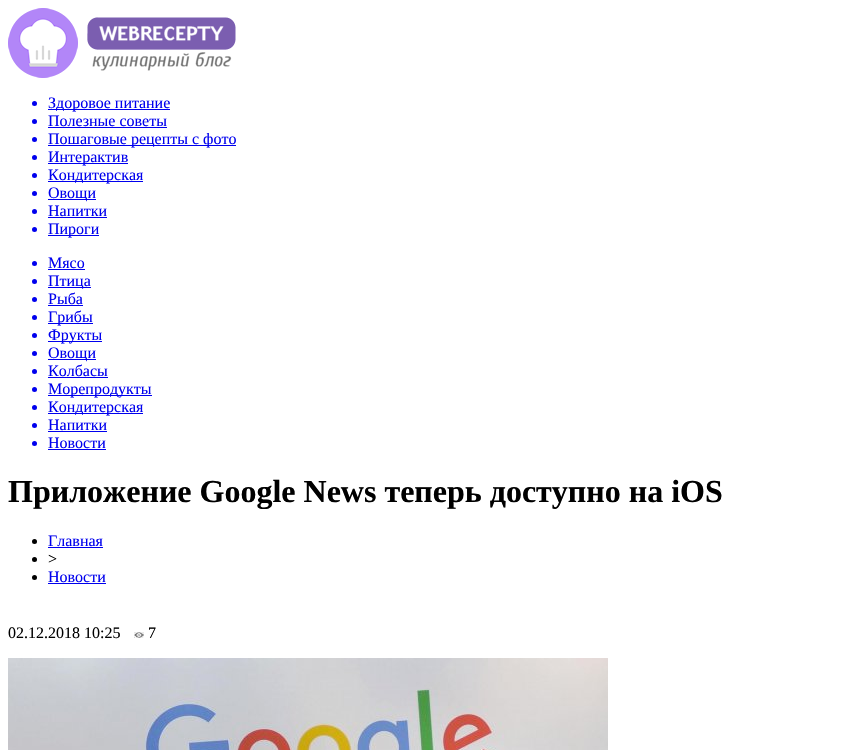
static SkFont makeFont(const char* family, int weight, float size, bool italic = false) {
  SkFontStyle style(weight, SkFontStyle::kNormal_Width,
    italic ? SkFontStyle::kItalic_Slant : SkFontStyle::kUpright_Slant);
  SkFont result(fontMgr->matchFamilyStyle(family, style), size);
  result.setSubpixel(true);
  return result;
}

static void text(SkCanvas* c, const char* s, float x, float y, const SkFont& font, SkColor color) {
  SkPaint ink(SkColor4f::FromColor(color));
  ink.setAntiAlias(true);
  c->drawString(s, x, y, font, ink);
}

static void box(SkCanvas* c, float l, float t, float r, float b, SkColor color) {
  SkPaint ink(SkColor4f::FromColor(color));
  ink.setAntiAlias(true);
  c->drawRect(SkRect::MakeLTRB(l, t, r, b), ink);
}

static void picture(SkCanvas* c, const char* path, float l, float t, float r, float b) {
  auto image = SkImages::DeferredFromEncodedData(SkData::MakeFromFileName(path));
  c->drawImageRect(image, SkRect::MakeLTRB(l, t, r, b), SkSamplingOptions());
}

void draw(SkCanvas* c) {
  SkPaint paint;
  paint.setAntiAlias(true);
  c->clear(0xffffffff);
  picture(c, "img_01.png", 8, 8, 236, 78);
  paint.setColor(0xff0000ee);
  c->drawCircle(34.5f, 103.5f, 2.5f, paint);
  box(c, 48, 109, 170, 110, 0xff0000ee);
  SkFont face1 = makeFont("Liberation Serif", 400, 16);
  text(c, "Здоровое питание", 48, 108, face1, 0xff0000ee);
  c->drawCircle(34.5f, 121.5f, 2.5f, paint);
  text(c, "Полезные советы", 48, 126, face1, 0xff0000ee);
  box(c, 48, 127, 167, 128, 0xff0000ee);
  c->drawCircle(34.5f, 139.5f, 2.5f, paint);
  box(c, 48, 145, 236, 146, 0xff0000ee);
  text(c, "Пошаговые рецепты с фото", 48, 144, face1, 0xff0000ee);
  c->drawCircle(34.5f, 157.5f, 2.5f, paint);
  box(c, 48, 163, 128, 164, 0xff0000ee);
  text(c, "Интерактив", 48, 162, face1, 0xff0000ee);
  c->drawCircle(34.5f, 175.5f, 2.5f, paint);
  box(c, 48, 181, 143, 182, 0xff0000ee);
  text(c, "Кондитерская", 48, 180, face1, 0xff0000ee);
  c->drawCircle(34.5f, 193.5f, 2.5f, paint);
  box(c, 48, 199, 96, 200, 0xff0000ee);
  text(c, "Овощи", 48, 198, face1, 0xff0000ee);
  c->drawCircle(34.5f, 211.5f, 2.5f, paint);
  text(c, "Напитки", 48, 216, face1, 0xff0000ee);
  box(c, 48, 217, 107, 218, 0xff0000ee);
  c->drawCircle(34.5f, 229.5f, 2.5f, paint);
  box(c, 48, 235, 99, 236, 0xff0000ee);
  text(c, "Пироги", 48, 234, face1, 0xff0000ee);
  c->drawCircle(34.5f, 263.5f, 2.5f, paint);
  text(c, "Мясо", 48, 268, face1, 0xff0000ee);
  box(c, 48, 269, 85, 270, 0xff0000ee);
  c->drawCircle(34.5f, 281.5f, 2.5f, paint);
  box(c, 48, 287, 91, 288, 0xff0000ee);
  text(c, "Птица", 48, 286, face1, 0xff0000ee);
  c->drawCircle(34.5f, 299.5f, 2.5f, paint);
  text(c, "Рыба", 48, 304, face1, 0xff0000ee);
  box(c, 48, 305, 83, 306, 0xff0000ee);
  c->drawCircle(34.5f, 317.5f, 2.5f, paint);
  box(c, 48, 323, 93, 324, 0xff0000ee);
  text(c, "Грибы", 48, 322, face1, 0xff0000ee);
  c->drawCircle(34.5f, 335.5f, 2.5f, paint);
  box(c, 48, 341, 102, 342, 0xff0000ee);
  text(c, "Фрукты", 48, 340, face1, 0xff0000ee);
  c->drawCircle(34.5f, 353.5f, 2.5f, paint);
  box(c, 48, 359, 96, 360, 0xff0000ee);
  text(c, "Овощи", 48, 358, face1, 0xff0000ee);
  c->drawCircle(34.5f, 371.5f, 2.5f, paint);
  text(c, "Колбасы", 48, 376, face1, 0xff0000ee);
  box(c, 48, 377, 108, 378, 0xff0000ee);
  c->drawCircle(34.5f, 389.5f, 2.5f, paint);
  box(c, 48, 395, 152, 396, 0xff0000ee);
  text(c, "Морепродукты", 48, 394, face1, 0xff0000ee);
  c->drawCircle(34.5f, 407.5f, 2.5f, paint);
  box(c, 48, 413, 143, 414, 0xff0000ee);
  text(c, "Кондитерская", 48, 412, face1, 0xff0000ee);
  c->drawCircle(34.5f, 425.5f, 2.5f, paint);
  text(c, "Напитки", 48, 430, face1, 0xff0000ee);
  box(c, 48, 431, 107, 432, 0xff0000ee);
  c->drawCircle(34.5f, 443.5f, 2.5f, paint);
  text(c, "Новости", 48, 448, face1, 0xff0000ee);
  box(c, 48, 449, 106, 450, 0xff0000ee);
  SkFont face2 = makeFont("Liberation Serif", 700, 32);
  text(c, "Приложение Google News теперь доступно на iOS", 8, 502, face2, 0xff000000);
  paint.setColor(0xff000000);
  c->drawCircle(34.5f, 541.5f, 2.5f, paint);
  text(c, "Главная", 48, 546, face1, 0xff0000ee);
  box(c, 48, 547, 103, 548, 0xff0000ee);
  c->drawCircle(34.5f, 559.5f, 2.5f, paint);
  text(c, ">", 48, 564, face1, 0xff000000);
  c->drawCircle(34.5f, 577.5f, 2.5f, paint);
  text(c, "Новости", 48, 582, face1, 0xff0000ee);
  box(c, 48, 583, 106, 584, 0xff0000ee);
  text(c, "02.12.2018 10:25", 8, 638, face1, 0xff000000);
  picture(c, "img_02.png", 134, 632, 144, 638);
  text(c, "7", 148, 638, face1, 0xff000000);
  picture(c, "img_03.png", 8, 658, 608, 750);
}
